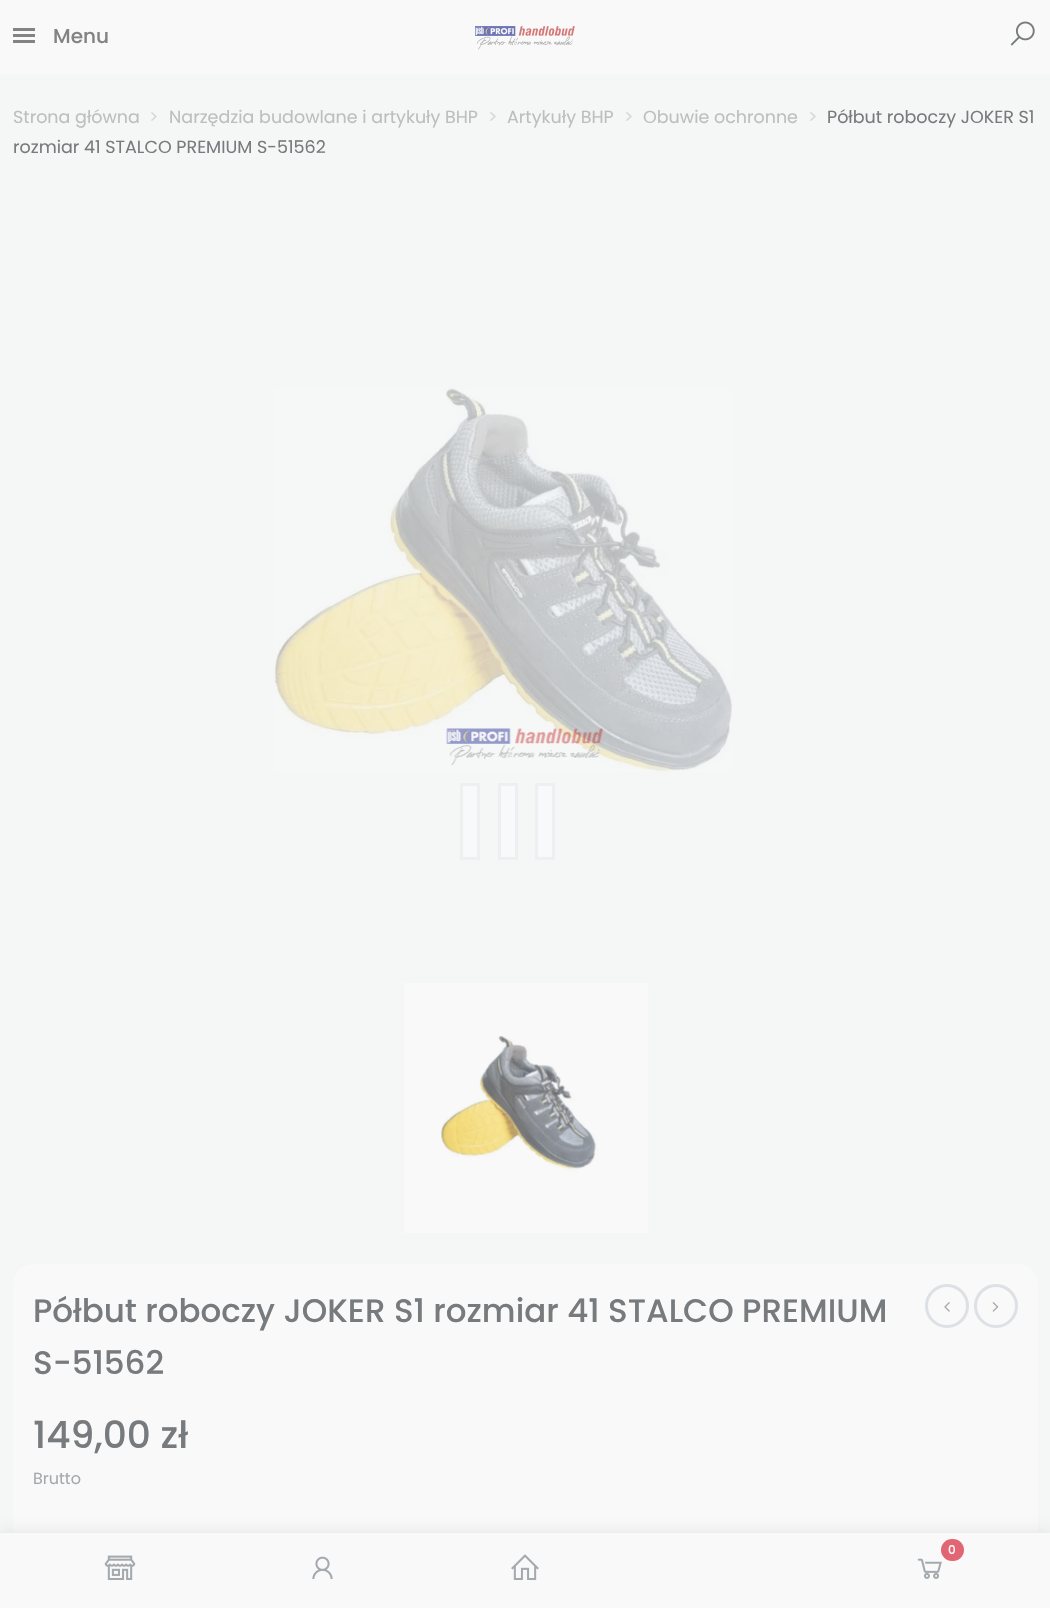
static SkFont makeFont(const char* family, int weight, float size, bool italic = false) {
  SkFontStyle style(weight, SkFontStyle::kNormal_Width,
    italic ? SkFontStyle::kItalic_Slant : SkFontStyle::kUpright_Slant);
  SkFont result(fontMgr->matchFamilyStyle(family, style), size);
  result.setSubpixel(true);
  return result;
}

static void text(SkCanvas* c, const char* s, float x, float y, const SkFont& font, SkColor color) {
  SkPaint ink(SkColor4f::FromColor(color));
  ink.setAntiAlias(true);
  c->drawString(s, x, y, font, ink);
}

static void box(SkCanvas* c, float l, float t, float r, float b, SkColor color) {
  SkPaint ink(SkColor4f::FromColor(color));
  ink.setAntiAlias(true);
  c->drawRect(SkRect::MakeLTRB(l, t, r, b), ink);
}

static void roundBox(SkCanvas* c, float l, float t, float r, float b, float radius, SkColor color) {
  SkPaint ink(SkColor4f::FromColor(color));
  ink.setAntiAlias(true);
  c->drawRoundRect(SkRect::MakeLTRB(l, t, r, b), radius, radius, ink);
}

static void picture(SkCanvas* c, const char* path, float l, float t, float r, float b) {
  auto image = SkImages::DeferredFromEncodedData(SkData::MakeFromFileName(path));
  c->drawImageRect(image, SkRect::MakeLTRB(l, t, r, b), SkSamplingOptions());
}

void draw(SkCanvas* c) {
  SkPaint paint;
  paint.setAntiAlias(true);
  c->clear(0xfff5f6f6);
  box(c, 0, 0, 1050, 74, 0xfff9f9f9);
  box(c, 13, 28, 35, 31, 0xff838383);
  box(c, 13, 34, 35, 37, 0xff838383);
  box(c, 13, 40, 35, 43, 0xff838383);
  SkFont face1 = makeFont("Poppins", 500, 20);
  text(c, "Menu", 53, 43, face1, 0xff838383);
  picture(c, "img_01.png", 475, 26, 575, 50);
  picture(c, "img_02.png", 1010, 21, 1035, 46);
  roundBox(c, 13, 1264, 1038, 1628, 20, 0xfff9f9f9);
  paint.setColor(0x4db8b8b8);
  paint.setMaskFilter(SkMaskFilter::MakeBlur(kNormal_SkBlurStyle, 7.5f));
  c->drawRect(SkRect::MakeLTRB(-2, 1531, 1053, 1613), paint);
  paint.setMaskFilter(nullptr);
  box(c, 0, 1533, 1050, 1608, 0xfff9f9f9);
  picture(c, "img_03.png", 917, 1558, 942, 1579);
  roundBox(c, 941, 1539, 964, 1561, 11, 0xffe26573);
  SkFont face2 = makeFont("Poppins", 500, 12);
  text(c, "0", 948, 1554, face2, 0xfff9f9f9);
  picture(c, "img_04.png", 104, 1555, 136, 1580);
  picture(c, "img_05.png", 312, 1556, 333, 1579);
  picture(c, "img_06.png", 511, 1554, 539, 1580);
  SkFont face3 = makeFont("Poppins", 400, 17.5f);
  text(c, "Strona główna", 13, 123, face3, 0xffbebebe);
  text(c, ">", 149, 123, face3, 0xffd5d7d9);
  text(c, "Narzędzia budowlane i artykuły BHP", 169, 123, face3, 0xffbebebe);
  text(c, ">", 488, 123, face3, 0xffd5d7d9);
  text(c, "Artykuły BHP", 507, 123, face3, 0xffbebebe);
  text(c, ">", 624, 123, face3, 0xffd5d7d9);
  text(c, "Obuwie ochronne", 643, 123, face3, 0xffbebebe);
  text(c, ">", 808, 123, face3, 0xffd5d7d9);
  text(c, "Półbut roboczy JOKER S1", 827, 123, face3, 0xff787b7d);
  text(c, "rozmiar 41 STALCO PREMIUM S-51562", 13, 153, face3, 0xff787b7d);
  picture(c, "img_07.png", 274, 388, 732, 772);
  picture(c, "img_08.png", 404, 983, 648, 1233);
  SkFont face4 = makeFont("Poppins", 500, 32.5f);
  text(c, "Półbut roboczy JOKER S1 rozmiar 41 STALCO PREMIUM", 33, 1322, face4, 0xff787b7d);
  text(c, "S-51562", 33, 1374, face4, 0xff787b7d);
  paint.setStyle(SkPaint::kStroke_Style);
  paint.setStrokeWidth(3);
  paint.setColor(0xffdde0e4);
  c->drawCircle(947, 1306, 20.5f, paint);
  picture(c, "img_09.png", 944, 1302, 950, 1312);
  c->drawCircle(996, 1306, 20.5f, paint);
  picture(c, "img_10.png", 992, 1302, 999, 1312);
  SkFont face5 = makeFont("Poppins", 500, 37.5f);
  text(c, "149,00 zł", 33, 1448, face5, 0xff787b7d);
  SkFont face6 = makeFont("Poppins", 400, 16);
  text(c, "Brutto", 33, 1484, face6, 0xffa4a9ae);
  picture(c, "img_11.png", 446, 728, 604, 765);
  paint.setStyle(SkPaint::kFill_Style);
  paint.setColor(0xfff8f9fa);
  c->drawRect(SkRect::MakeLTRB(461.5f, 784.5f, 478.5f, 858.5f), paint);
  paint.setStyle(SkPaint::kStroke_Style);
  paint.setColor(0xffeeeff0);
  c->drawRect(SkRect::MakeLTRB(461.5f, 784.5f, 478.5f, 858.5f), paint);
  paint.setStyle(SkPaint::kFill_Style);
  paint.setColor(0xfff8f9fa);
  c->drawRect(SkRect::MakeLTRB(499.5f, 784.5f, 516.5f, 858.5f), paint);
  paint.setStyle(SkPaint::kStroke_Style);
  paint.setColor(0xffeeeff0);
  c->drawRect(SkRect::MakeLTRB(499.5f, 784.5f, 516.5f, 858.5f), paint);
  paint.setStyle(SkPaint::kFill_Style);
  paint.setColor(0xfff8f9fa);
  c->drawRect(SkRect::MakeLTRB(536.5f, 784.5f, 553.5f, 858.5f), paint);
  paint.setStyle(SkPaint::kStroke_Style);
  paint.setColor(0xffeeeff0);
  c->drawRect(SkRect::MakeLTRB(536.5f, 784.5f, 553.5f, 858.5f), paint);
}
